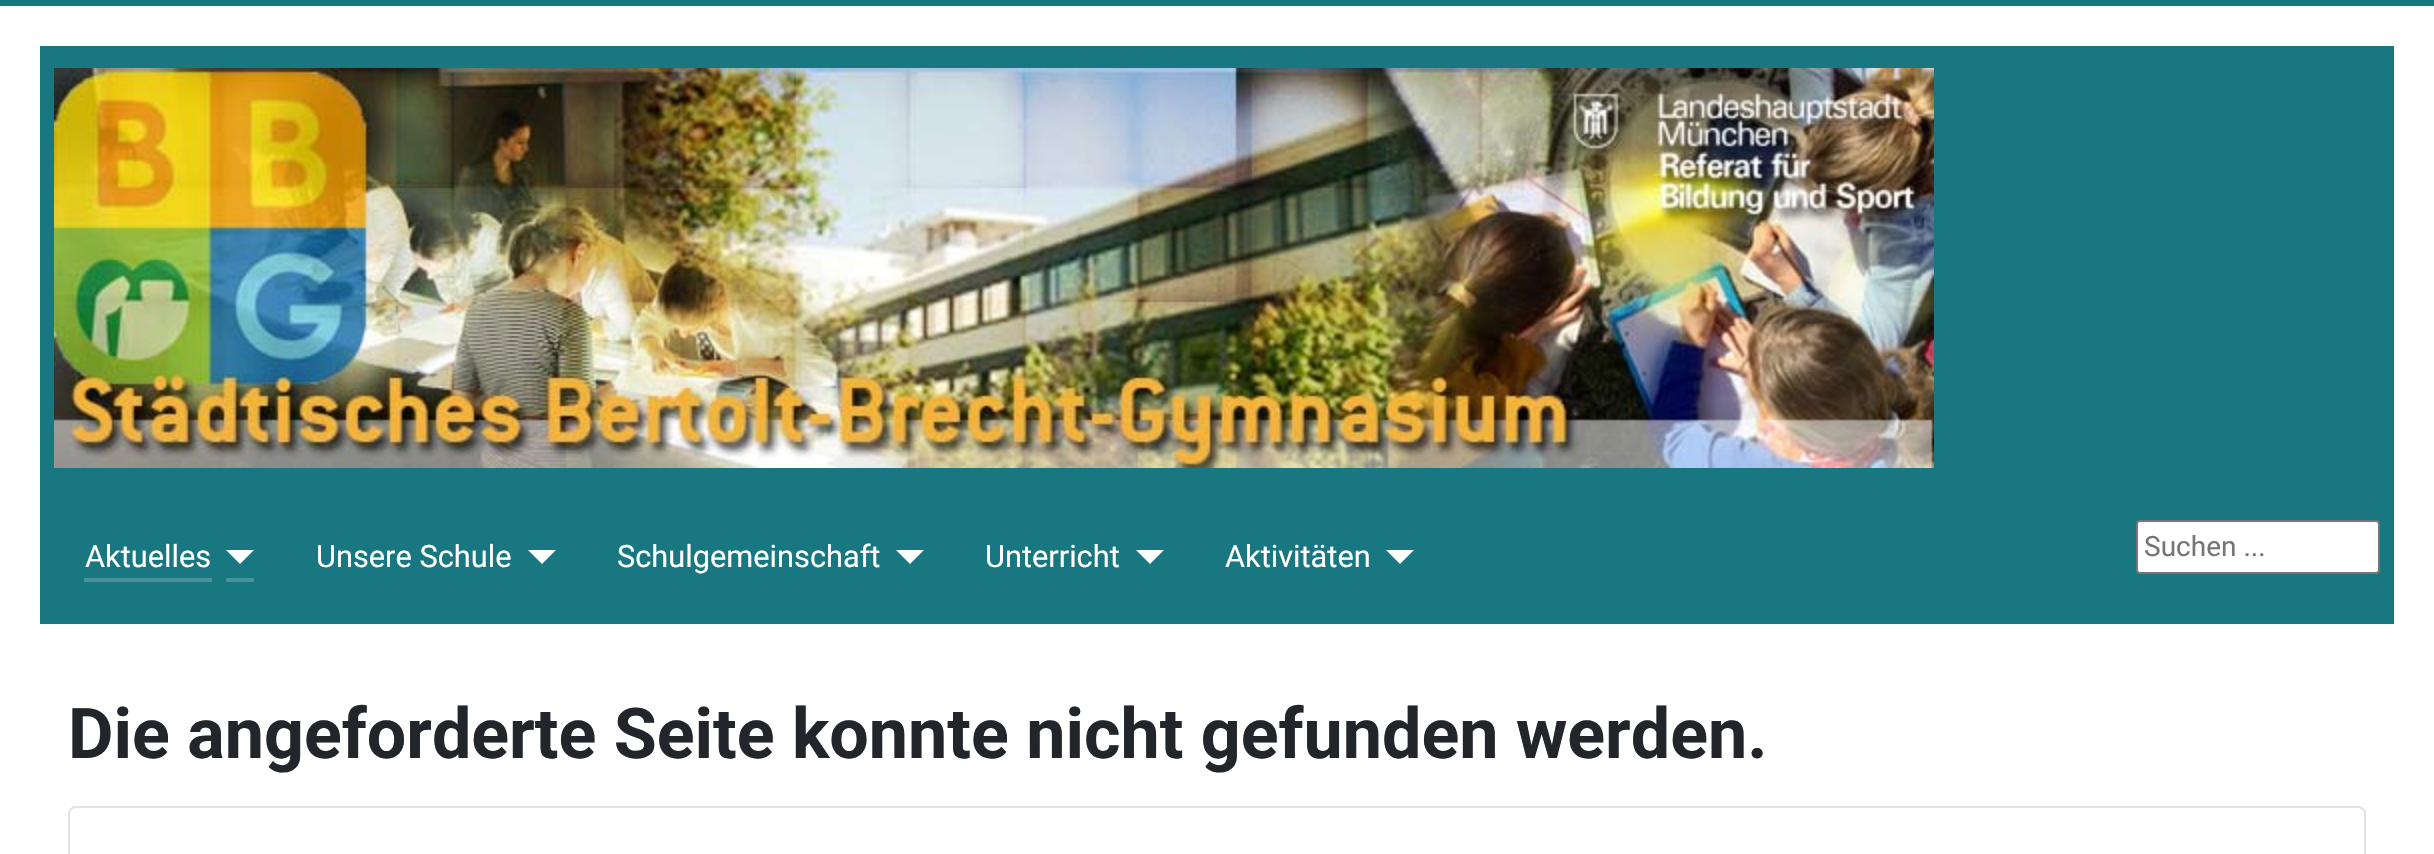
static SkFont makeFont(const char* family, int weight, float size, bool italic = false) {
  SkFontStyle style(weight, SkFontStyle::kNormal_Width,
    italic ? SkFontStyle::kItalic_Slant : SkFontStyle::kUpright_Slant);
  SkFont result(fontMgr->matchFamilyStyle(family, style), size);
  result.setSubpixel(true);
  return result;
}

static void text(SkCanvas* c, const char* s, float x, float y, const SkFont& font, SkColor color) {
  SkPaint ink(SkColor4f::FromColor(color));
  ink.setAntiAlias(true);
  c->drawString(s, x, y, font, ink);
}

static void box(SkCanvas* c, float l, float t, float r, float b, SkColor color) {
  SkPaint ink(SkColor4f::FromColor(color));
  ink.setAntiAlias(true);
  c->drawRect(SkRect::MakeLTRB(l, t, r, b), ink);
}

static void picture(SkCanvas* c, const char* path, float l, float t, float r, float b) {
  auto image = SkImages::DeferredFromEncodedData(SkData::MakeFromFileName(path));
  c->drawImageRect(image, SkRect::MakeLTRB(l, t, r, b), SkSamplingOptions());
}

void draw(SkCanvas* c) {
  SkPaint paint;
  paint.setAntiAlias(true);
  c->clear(0xffffffff);
  box(c, 0, 0, 2434, 6, 0xff197782);
  box(c, 40, 46, 2394, 624, 0xff197782);
  picture(c, "img_01.png", 54, 68, 1934, 468);
  SkFont face1 = makeFont("Roboto", 400, 30.75f);
  text(c, "Aktuelles", 85, 567, face1, 0xffffffff);
  box(c, 84, 578, 212, 582, 0xff47929b);
  paint.setColor(0xffffffff);
  c->drawPath(SkPathBuilder().moveTo(226, 550).lineTo(254, 550).lineTo(240, 564).close().detach(), paint);
  box(c, 226, 578, 254, 582, 0xff47929b);
  text(c, "Unsere Schule", 316, 567, face1, 0xffffffff);
  c->drawPath(SkPathBuilder().moveTo(528, 550).lineTo(556, 550).lineTo(542, 564).close().detach(), paint);
  text(c, "Schulgemeinschaft", 617, 567, face1, 0xffffffff);
  c->drawPath(SkPathBuilder().moveTo(896, 550).lineTo(924, 550).lineTo(910, 564).close().detach(), paint);
  text(c, "Unterricht", 985, 567, face1, 0xffffffff);
  c->drawPath(SkPathBuilder().moveTo(1136, 550).lineTo(1164, 550).lineTo(1150, 564).close().detach(), paint);
  text(c, "Aktivitäten", 1225, 567, face1, 0xffffffff);
  c->drawPath(SkPathBuilder().moveTo(1386, 550).lineTo(1414, 550).lineTo(1400, 564).close().detach(), paint);
  c->drawRoundRect(SkRect::MakeLTRB(2137, 521, 2379, 573), 3, 3, paint);
  paint.setStyle(SkPaint::kStroke_Style);
  paint.setStrokeWidth(2);
  paint.setColor(0xff767676);
  c->drawRoundRect(SkRect::MakeLTRB(2137, 521, 2379, 573), 3, 3, paint);
  SkFont face2 = makeFont("Roboto", 400, 28);
  text(c, "Suchen ...", 2144, 556, face2, 0xff757575);
  SkFont face3 = makeFont("Roboto", 700, 70);
  text(c, "Die angeforderte Seite konnte nicht gefunden werden.", 68, 758, face3, 0xff22262a);
  paint.setColor(0xffdfe3e7);
  c->drawRoundRect(SkRect::MakeLTRB(69, 807, 2365, 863), 7, 7, paint);
}
